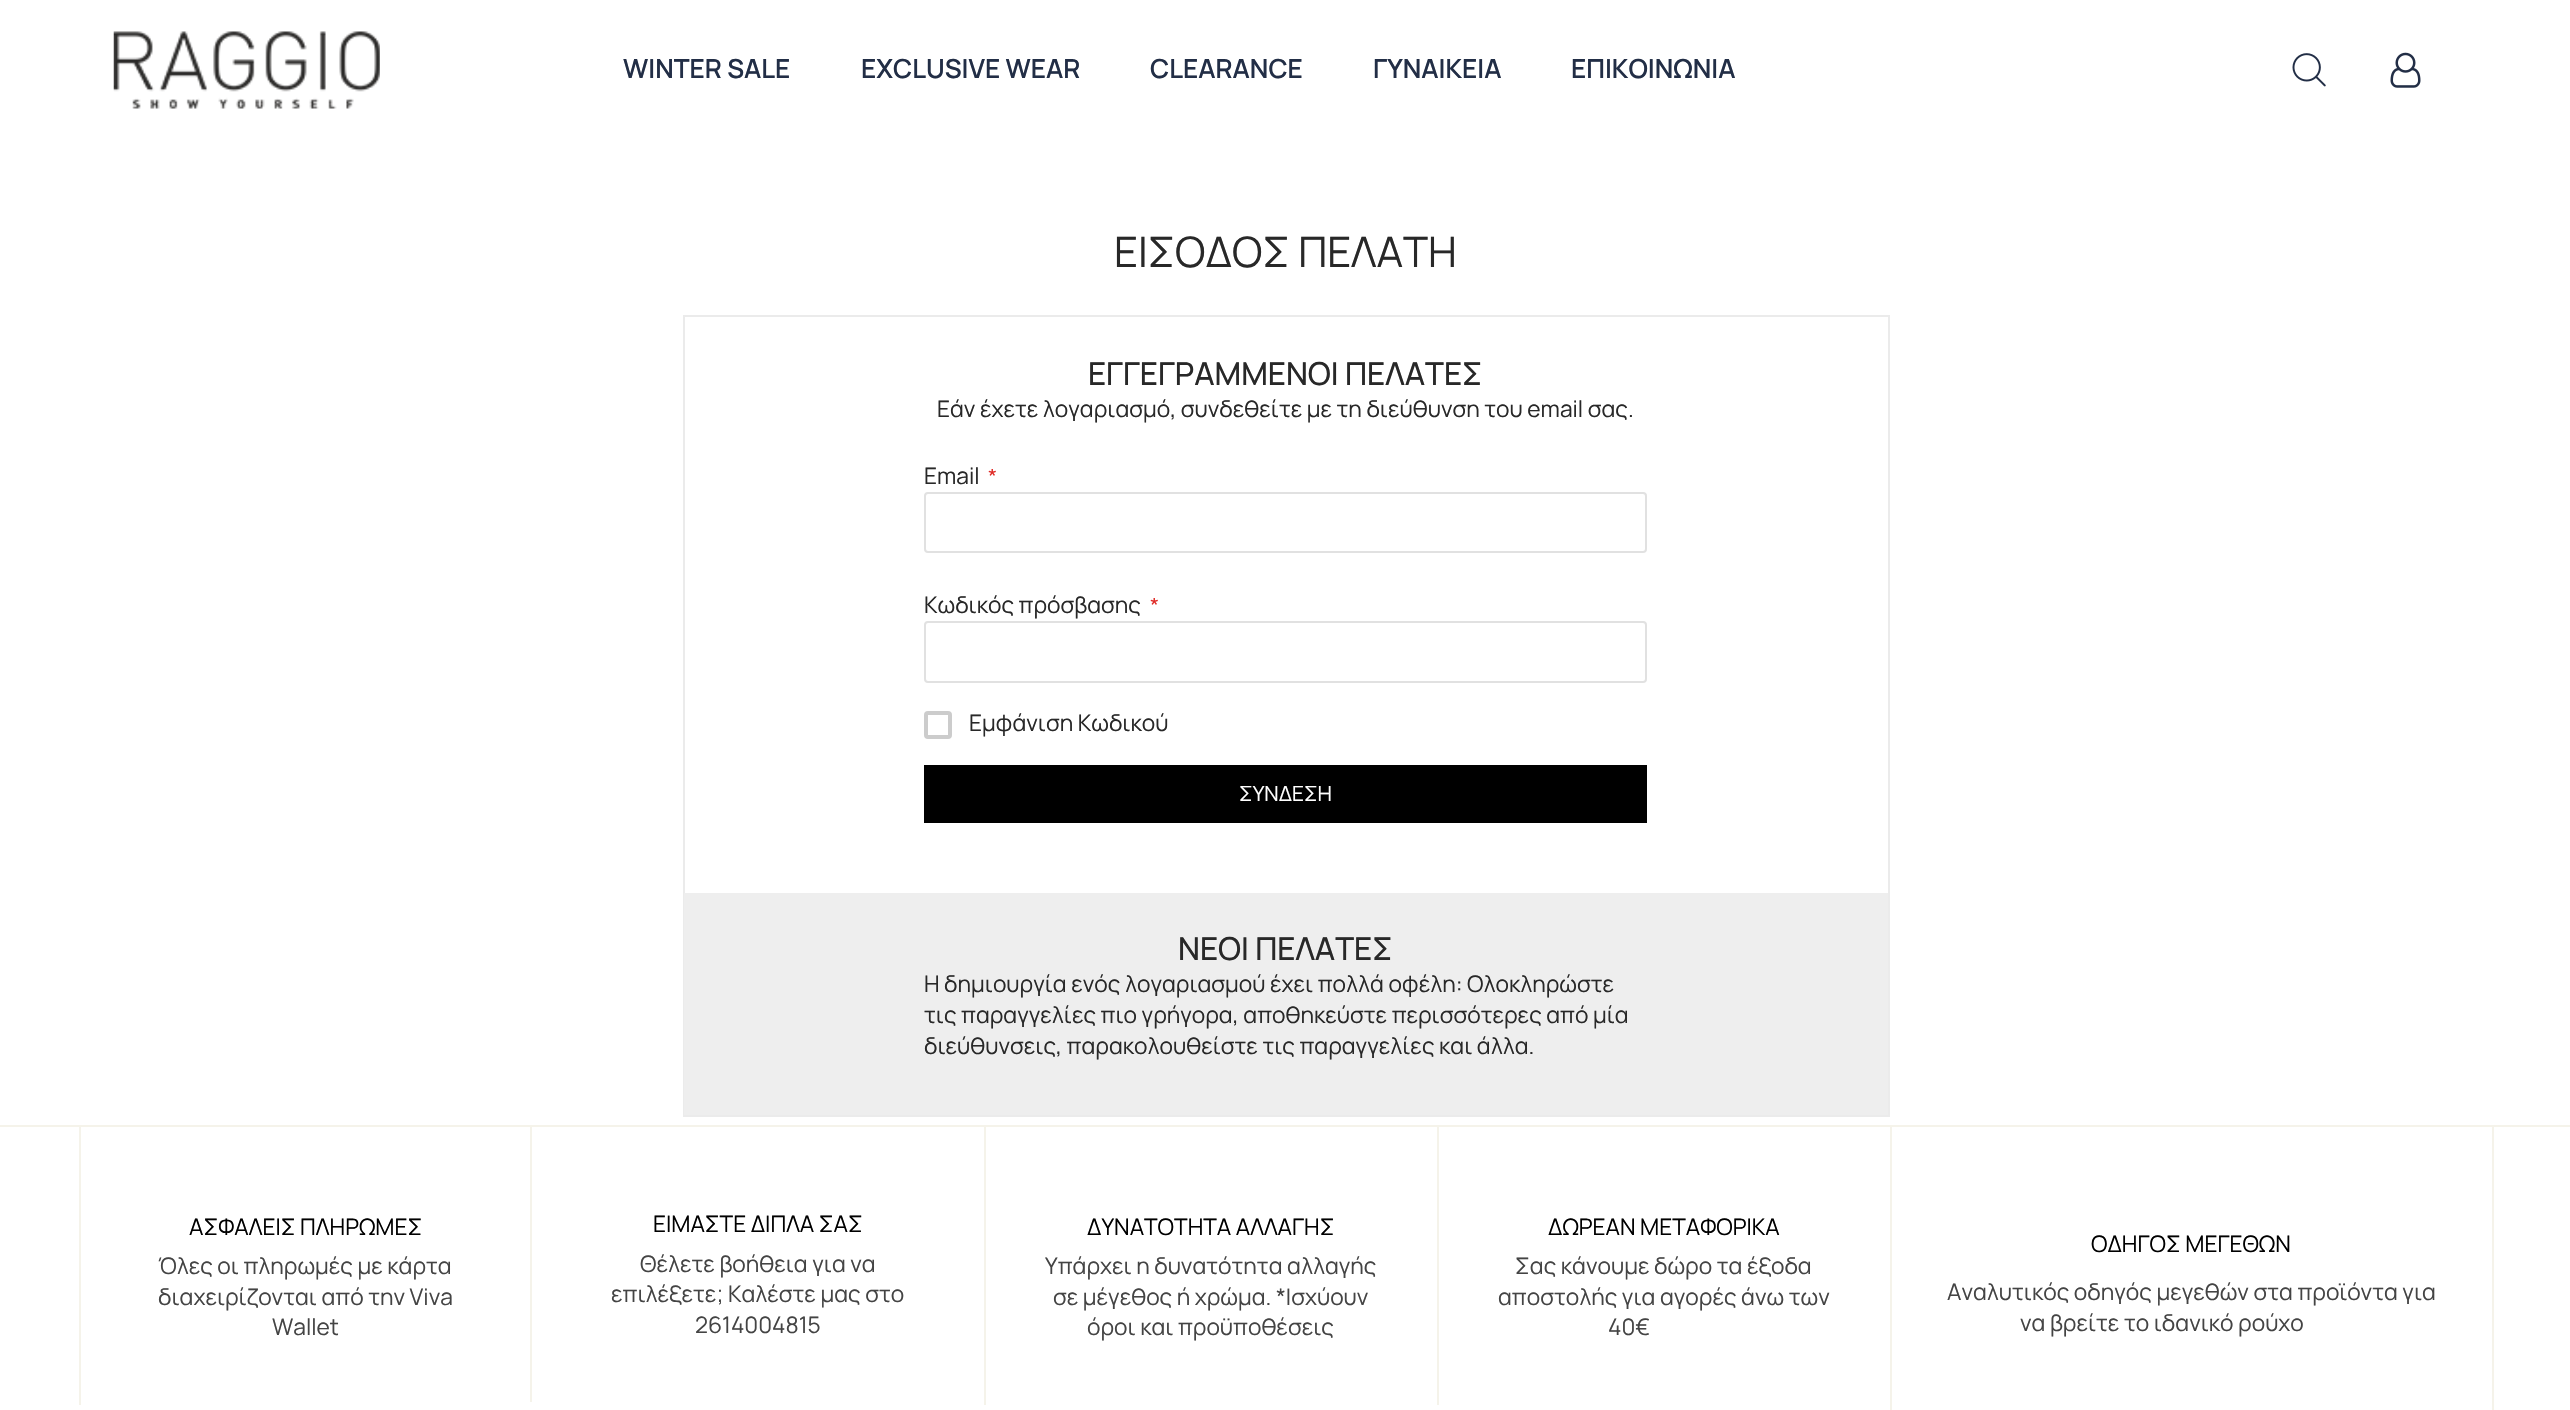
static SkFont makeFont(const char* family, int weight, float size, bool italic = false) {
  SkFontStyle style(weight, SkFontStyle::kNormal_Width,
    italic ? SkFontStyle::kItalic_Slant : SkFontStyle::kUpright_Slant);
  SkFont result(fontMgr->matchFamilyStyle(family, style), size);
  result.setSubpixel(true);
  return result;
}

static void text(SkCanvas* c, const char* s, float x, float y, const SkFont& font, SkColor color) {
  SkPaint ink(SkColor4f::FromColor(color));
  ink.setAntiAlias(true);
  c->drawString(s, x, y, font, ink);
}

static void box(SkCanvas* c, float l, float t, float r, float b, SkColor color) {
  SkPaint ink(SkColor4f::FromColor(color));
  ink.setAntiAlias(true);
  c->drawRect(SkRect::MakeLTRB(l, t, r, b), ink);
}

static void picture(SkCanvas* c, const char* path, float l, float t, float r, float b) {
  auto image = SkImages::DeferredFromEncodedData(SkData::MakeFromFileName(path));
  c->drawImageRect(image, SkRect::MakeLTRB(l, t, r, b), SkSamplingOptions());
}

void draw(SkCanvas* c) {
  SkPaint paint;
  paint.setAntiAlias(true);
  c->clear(0xffffffff);
  picture(c, "img_01.png", 113, 31, 380, 109);
  SkFont face1 = makeFont("Manrope", 600, 26.25f);
  text(c, "WINTER SALE", 623, 78, face1, 0xff222e46);
  text(c, "EXCLUSIVE WEAR", 861, 78, face1, 0xff222e46);
  text(c, "CLEARANCE", 1150, 78, face1, 0xff222e46);
  text(c, "ΓΥΝΑΙΚΕΙΑ", 1373, 78, face1, 0xff222e46);
  text(c, "ΕΠΙΚΟΙΝΩΝΙΑ", 1571, 78, face1, 0xff222e46);
  picture(c, "img_02.png", 2292, 53, 2326, 87);
  picture(c, "img_03.png", 2390, 52, 2421, 88);
  SkFont face2 = makeFont("Manrope", 400, 42);
  text(c, "ΕΙΣΟΔΟΣ ΠΕΛΑΤΗ", 1114, 267, face2, 0xff282828);
  paint.setStyle(SkPaint::kStroke_Style);
  paint.setStrokeWidth(2);
  paint.setColor(0xffebebeb);
  c->drawRect(SkRect::MakeLTRB(684, 316, 1889, 1116), paint);
  SkFont face3 = makeFont("Manrope", 500, 31.5f);
  text(c, "ΕΓΓΕΓΡΑΜΜΕΝΟΙ ΠΕΛΑΤΕΣ", 1088, 385, face3, 0xff282828);
  SkFont face4 = makeFont("Manrope", 400, 22.75f);
  text(c, "Εάν έχετε λογαριασμό, συνδεθείτε με τη διεύθυνση του email σας.", 937, 417, face4, 0xff282828);
  text(c, "Email", 924, 484, face4, 0xff282828);
  SkFont face5 = makeFont("Manrope", 400, 21);
  text(c, "*", 988, 484, face5, 0xffe02b27);
  paint.setColor(0xffe1e1e1);
  c->drawRoundRect(SkRect::MakeLTRB(925, 493, 1646, 552), 3, 3, paint);
  text(c, "Κωδικός πρόσβασης", 924, 613, face4, 0xff282828);
  text(c, "*", 1150, 613, face5, 0xffe02b27);
  c->drawRoundRect(SkRect::MakeLTRB(925, 622, 1646, 682), 3, 3, paint);
  paint.setStrokeWidth(4);
  paint.setColor(0xffcccccc);
  c->drawRoundRect(SkRect::MakeLTRB(926, 713, 950, 737), 2, 2, paint);
  text(c, "Εμφάνιση Κωδικού", 969, 731, face4, 0xff282828);
  box(c, 924, 765, 1647, 823, 0xff000000);
  text(c, "ΣΥΝΔΕΣΗ", 1239, 801, face5, 0xffffffff);
  box(c, 684, 893, 1888, 1115, 0xffeeeeee);
  text(c, "ΝΕΟΙ ΠΕΛΑΤΕΣ", 1178, 960, face3, 0xff282828);
  text(c, "Η δημιουργία ενός λογαριασμού έχει πολλά οφέλη: Ολοκληρώστε", 924, 992, face4, 0xff282828);
  text(c, "τις παραγγελίες πιο γρήγορα, αποθηκεύστε περισσότερες από μία", 924, 1023, face4, 0xff282828);
  text(c, "διεύθυνσεις, παρακολουθείστε τις παραγγελίες και άλλα.", 924, 1054, face4, 0xff282828);
  box(c, 0, 1125, 2570, 1127, 0xfff5f3ea);
  box(c, 79, 1127, 81, 1405, 0xfff5f3ea);
  text(c, "ΑΣΦΑΛΕΙΣ ΠΛΗΡΩΜΕΣ", 189, 1235, face4, 0xff000000);
  text(c, "Όλες οι πληρωμές με κάρτα", 158, 1274, face4, 0xff444444);
  text(c, "διαχειρίζονται από την Viva", 158, 1305, face4, 0xff444444);
  text(c, "Wallet", 272, 1335, face4, 0xff444444);
  box(c, 530, 1127, 532, 1402, 0xfff5f3ea);
  text(c, "ΕΙΜΑΣΤΕ ΔΙΠΛΑ ΣΑΣ", 653, 1232, face4, 0xff000000);
  text(c, "Θέλετε βοήθεια για να", 640, 1272, face4, 0xff444444);
  text(c, "επιλέξετε; Καλέστε μας στο", 611, 1302, face4, 0xff444444);
  text(c, "2614004815", 695, 1333, face4, 0xff444444);
  box(c, 984, 1127, 986, 1405, 0xfff5f3ea);
  text(c, "ΔΥΝΑΤΟΤΗΤΑ ΑΛΛΑΓΗΣ", 1087, 1235, face4, 0xff000000);
  text(c, "Υπάρχει η δυνατότητα αλλαγής", 1045, 1274, face4, 0xff444444);
  text(c, "σε μέγεθος ή χρώμα. *Ισχύουν", 1053, 1305, face4, 0xff444444);
  text(c, "όροι και προϋποθέσεις", 1087, 1335, face4, 0xff444444);
  box(c, 1437, 1127, 1439, 1405, 0xfff5f3ea);
  text(c, "ΔΩΡΕΑΝ ΜΕΤΑΦΟΡΙΚΑ", 1548, 1235, face4, 0xff000000);
  text(c, "Σας κάνουμε δώρο τα έξοδα", 1515, 1274, face4, 0xff444444);
  text(c, "αποστολής για αγορές άνω των", 1498, 1305, face4, 0xff444444);
  text(c, "40€", 1608, 1335, face4, 0xff444444);
  box(c, 2492, 1127, 2494, 1410, 0xfff5f3ea);
  box(c, 1890, 1127, 1892, 1410, 0xfff5f3ea);
  text(c, "ΟΔΗΓΟΣ ΜΕΓΕΘΩΝ", 2091, 1252, face4, 0xff000000);
  text(c, "Αναλυτικός οδηγός μεγεθών στα προϊόντα για", 1947, 1300, face4, 0xff444444);
  text(c, "να βρείτε το ιδανικό ρούχο", 2020, 1331, face4, 0xff444444);
}
